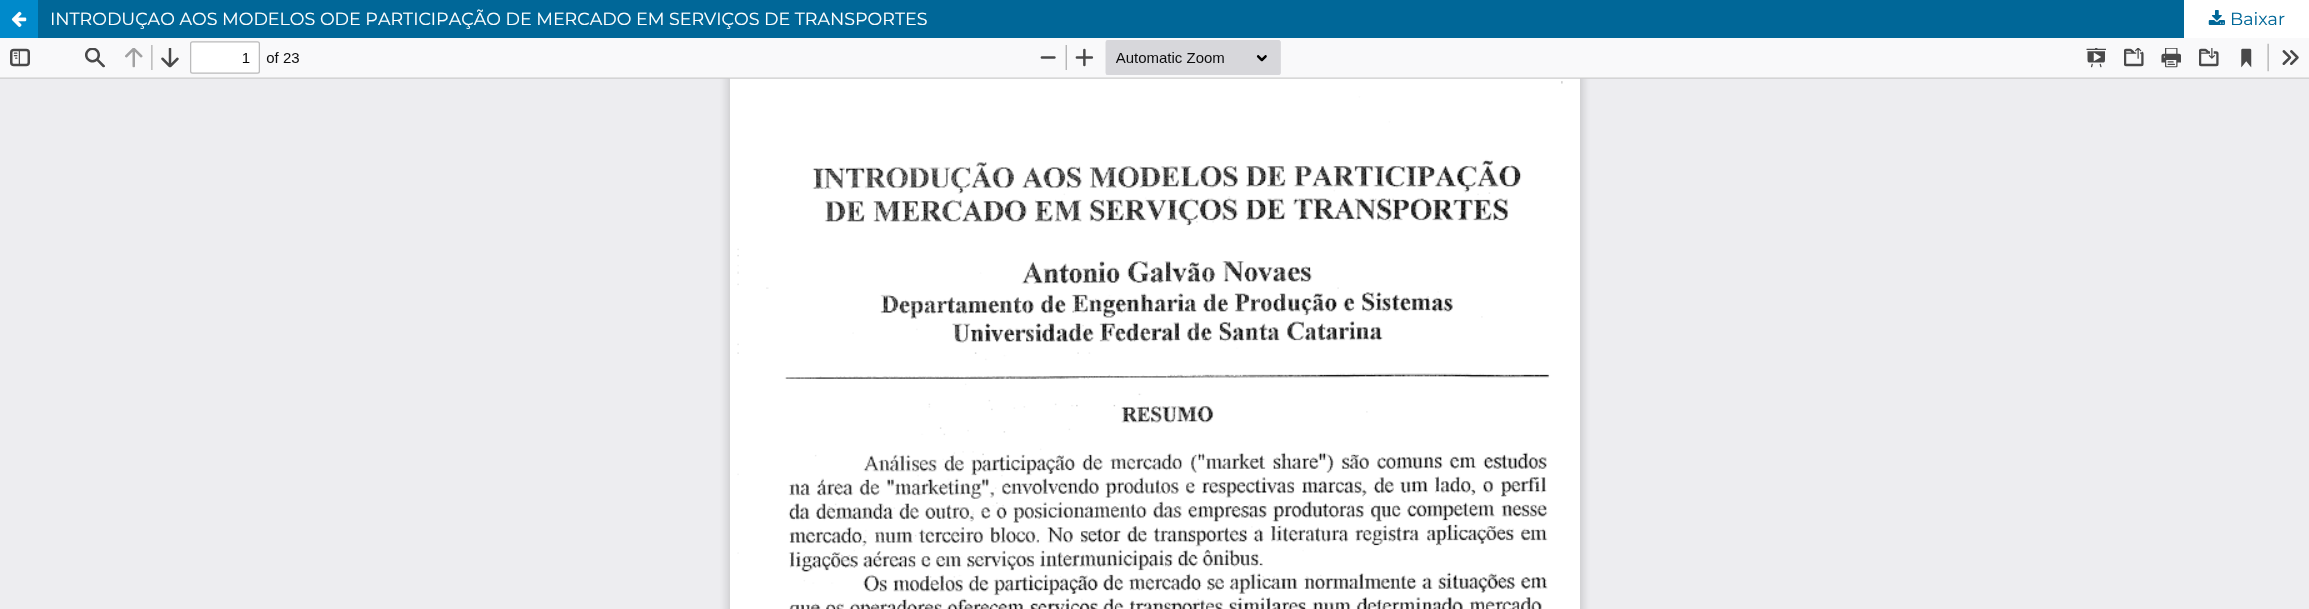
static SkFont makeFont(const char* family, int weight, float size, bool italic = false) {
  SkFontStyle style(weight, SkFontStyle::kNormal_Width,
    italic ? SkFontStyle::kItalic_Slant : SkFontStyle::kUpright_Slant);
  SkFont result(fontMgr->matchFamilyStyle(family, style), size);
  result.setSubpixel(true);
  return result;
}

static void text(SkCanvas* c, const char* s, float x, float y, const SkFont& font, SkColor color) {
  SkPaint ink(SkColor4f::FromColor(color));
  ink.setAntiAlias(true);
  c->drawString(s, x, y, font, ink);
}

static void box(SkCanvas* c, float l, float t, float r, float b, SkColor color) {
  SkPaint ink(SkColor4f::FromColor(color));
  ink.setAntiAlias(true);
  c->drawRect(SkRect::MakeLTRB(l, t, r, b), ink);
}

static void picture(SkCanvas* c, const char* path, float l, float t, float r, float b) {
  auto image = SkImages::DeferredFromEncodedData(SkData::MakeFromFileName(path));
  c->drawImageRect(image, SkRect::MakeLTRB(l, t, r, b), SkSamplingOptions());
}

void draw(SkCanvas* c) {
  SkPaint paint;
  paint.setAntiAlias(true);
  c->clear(0xffffffff);
  box(c, 38, 0, 2184, 38, 0xff006798);
  box(c, 0, 0, 38, 38, 0xff008acb);
  picture(c, "img_01.png", 11, 11, 27, 27);
  SkFont face1 = makeFont("Montserrat", 400, 17.5f);
  text(c, "INTRODUÇAO AOS MODELOS ODE PARTICIPAÇÃO DE MERCADO EM SERVIÇOS DE TRANSPORTES", 50, 25, face1, 0xffffffff);
  picture(c, "img_02.png", 2208, 10, 2225, 25);
  text(c, "Baixar", 2230, 25, face1, 0xff006798);
  picture(c, "img_03.png", 0, 38, 2309, 609);
}
